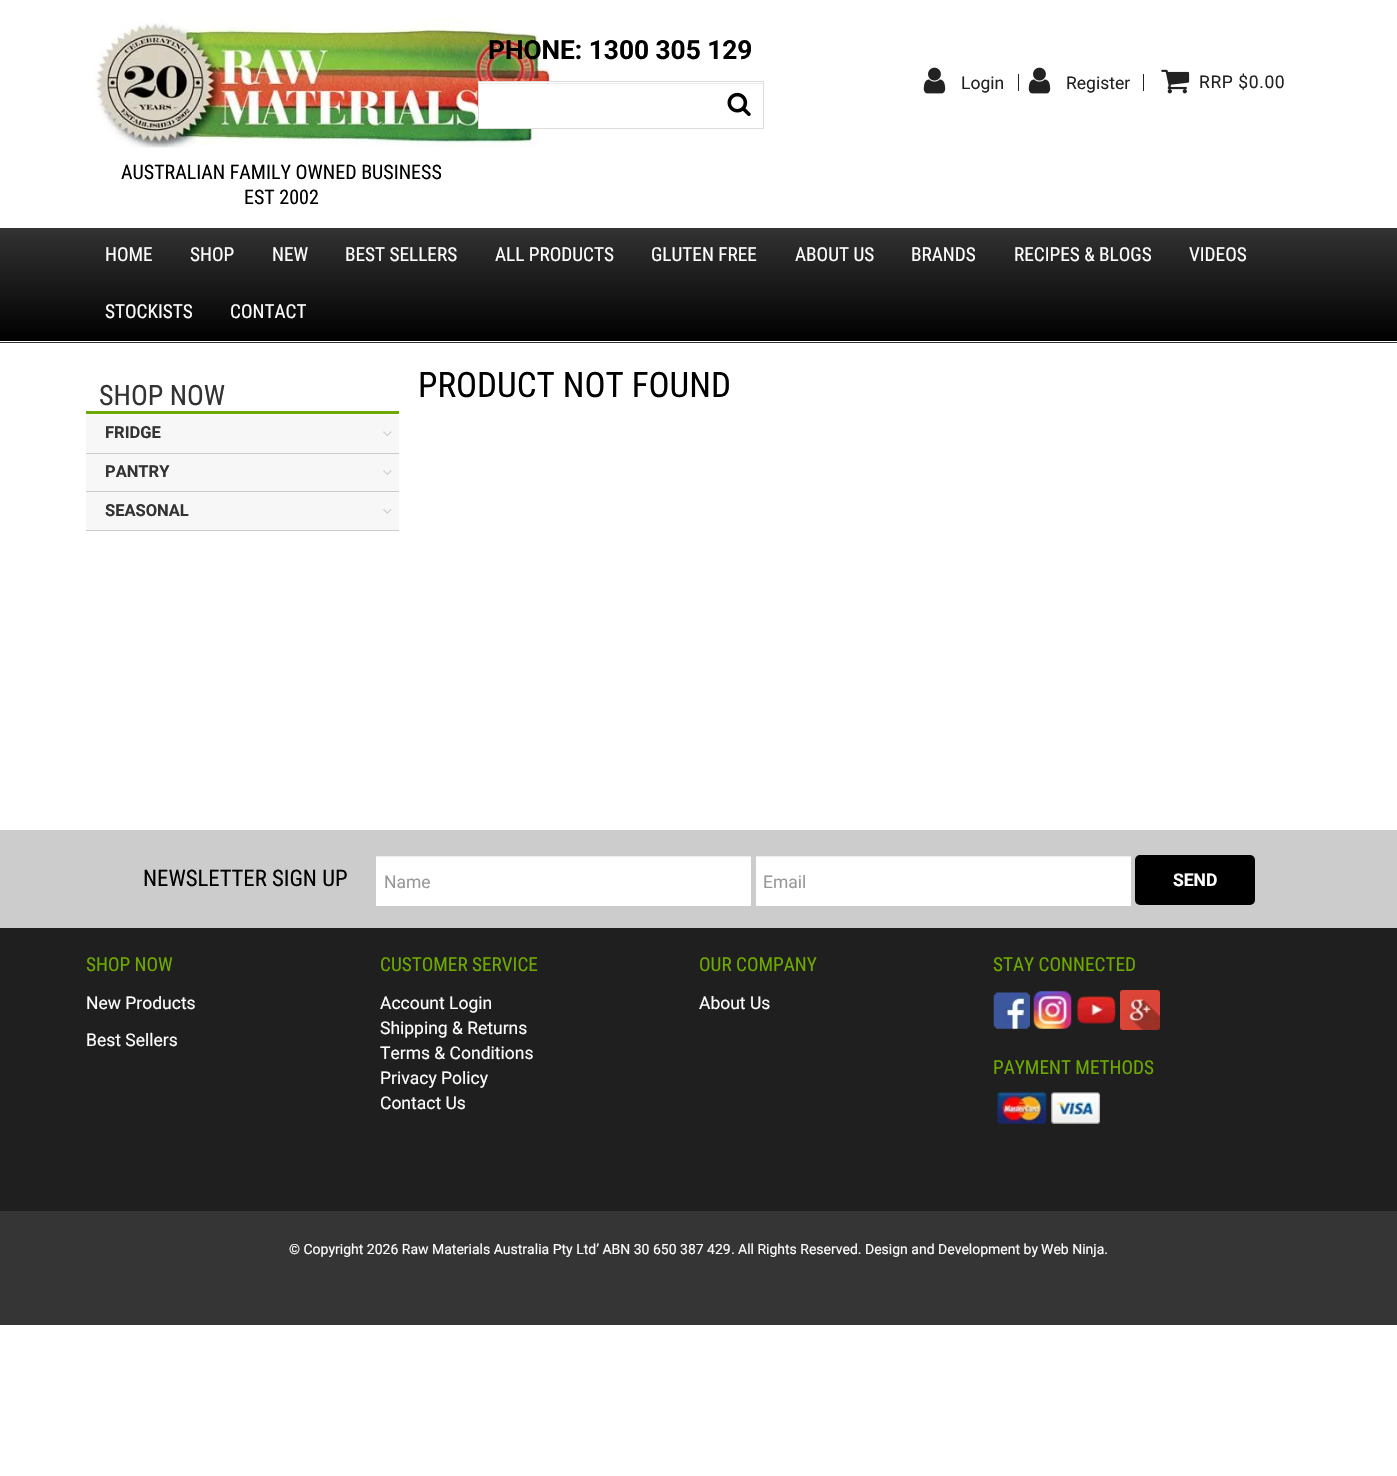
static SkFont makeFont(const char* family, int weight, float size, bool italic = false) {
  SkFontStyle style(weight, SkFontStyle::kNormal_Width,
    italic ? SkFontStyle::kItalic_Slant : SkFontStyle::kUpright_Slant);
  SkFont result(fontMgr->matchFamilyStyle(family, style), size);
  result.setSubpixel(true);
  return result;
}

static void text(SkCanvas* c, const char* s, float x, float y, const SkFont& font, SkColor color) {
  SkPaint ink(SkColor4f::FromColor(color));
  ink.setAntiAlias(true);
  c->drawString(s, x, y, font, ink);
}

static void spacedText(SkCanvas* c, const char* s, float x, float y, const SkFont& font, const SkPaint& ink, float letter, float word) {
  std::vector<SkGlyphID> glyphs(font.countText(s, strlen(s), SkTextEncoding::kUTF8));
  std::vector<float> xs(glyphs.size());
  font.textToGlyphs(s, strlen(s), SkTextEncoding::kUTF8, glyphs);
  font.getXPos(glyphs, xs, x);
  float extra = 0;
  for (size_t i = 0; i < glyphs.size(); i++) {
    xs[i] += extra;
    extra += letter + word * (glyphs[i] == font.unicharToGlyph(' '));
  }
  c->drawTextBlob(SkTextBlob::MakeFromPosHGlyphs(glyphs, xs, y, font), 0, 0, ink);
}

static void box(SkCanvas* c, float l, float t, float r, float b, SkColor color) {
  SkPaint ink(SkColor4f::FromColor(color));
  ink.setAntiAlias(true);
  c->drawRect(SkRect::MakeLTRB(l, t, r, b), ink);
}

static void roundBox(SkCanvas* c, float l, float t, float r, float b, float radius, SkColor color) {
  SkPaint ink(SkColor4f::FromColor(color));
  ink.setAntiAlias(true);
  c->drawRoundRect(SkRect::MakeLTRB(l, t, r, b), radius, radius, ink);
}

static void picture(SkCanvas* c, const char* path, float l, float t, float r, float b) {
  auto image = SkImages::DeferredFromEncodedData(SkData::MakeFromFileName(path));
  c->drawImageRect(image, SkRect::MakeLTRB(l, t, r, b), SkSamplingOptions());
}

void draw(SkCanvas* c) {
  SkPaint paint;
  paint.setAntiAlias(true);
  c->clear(0xffffffff);
  picture(c, "img_04.png", 93, 19, 552, 148);
  SkFont face1 = makeFont("Roboto", 700, 26.25f);
  text(c, "PHONE: 1300 305 129", 488, 59, face1, 0xff000000);
  box(c, 479, 82, 552, 128, 0xffffffff);
  box(c, 479, 83, 763, 84, 0xffececec);
  paint.setStyle(SkPaint::kStroke_Style);
  paint.setStrokeWidth(1);
  paint.setColor(0xffdddddd);
  c->drawRect(SkRect::MakeLTRB(478.5f, 81.5f, 763.5f, 128.5f), paint);
  picture(c, "img_01.png", 727, 92, 751, 116);
  box(c, 1018, 74, 1019, 91, 0xff222222);
  picture(c, "img_02.png", 923, 67, 946, 94);
  SkFont face2 = makeFont("Roboto", 400, 17.5f);
  text(c, "Login", 961, 89, face2, 0xff222222);
  box(c, 1143, 74, 1144, 91, 0xff222222);
  picture(c, "img_02.png", 1028, 67, 1051, 94);
  text(c, "Register", 1066, 89, face2, 0xff222222);
  picture(c, "img_03.png", 1161, 69, 1190, 94);
  paint.setStyle(SkPaint::kFill_Style);
  paint.setColor(0xff222222);
  spacedText(c, "RRP $0.00", 1199, 88, face2, paint, 0.6f, 0);
  SkFont face3 = makeFont("Roboto Condensed", 400, 20);
  text(c, "AUSTRALIAN FAMILY OWNED BUSINESS", 121, 179, face3, 0xff000000);
  text(c, "EST 2002", 244, 204, face3, 0xff000000);
  {
    const SkColor colors[] = {0xff333333, 0xff000000};
    const float stops[] = {0, 1};
    const SkPoint ends[] = {{699, 227}, {699, 341}};
    paint.setShader(SkGradientShader::MakeLinear(ends, colors, stops, 2, SkTileMode::kClamp));
    paint.setAlpha(255);
  }
  c->drawRect(SkRect::MakeLTRB(0, 228, 1397, 341), paint);
  {
    const SkColor colors[] = {0xff333333, 0xff000000};
    const float stops[] = {0, 1};
    const SkPoint ends[] = {{699, 341}, {699, 455}};
    paint.setShader(SkGradientShader::MakeLinear(ends, colors, stops, 2, SkTileMode::kClamp));
    paint.setAlpha(255);
  }
  c->drawRect(SkRect::MakeLTRB(0, 342, 1397, 343), paint);
  SkFont face4 = makeFont("Roboto Condensed", 400, 19.25f);
  text(c, "HOME", 105, 261, face4, 0xffffffff);
  text(c, "SHOP", 190, 261, face4, 0xffffffff);
  text(c, "NEW", 272, 261, face4, 0xffffffff);
  text(c, "BEST SELLERS", 345, 261, face4, 0xffffffff);
  text(c, "ALL PRODUCTS", 495, 261, face4, 0xffffffff);
  text(c, "GLUTEN FREE", 651, 261, face4, 0xffffffff);
  text(c, "ABOUT US", 795, 261, face4, 0xffffffff);
  text(c, "BRANDS", 911, 261, face4, 0xffffffff);
  text(c, "RECIPES & BLOGS", 1014, 261, face4, 0xffffffff);
  text(c, "VIDEOS", 1189, 261, face4, 0xffffffff);
  text(c, "STOCKISTS", 105, 318, face4, 0xffffffff);
  text(c, "CONTACT", 230, 318, face4, 0xffffffff);
  box(c, 86, 411, 399, 414, 0xff6ea900);
  SkFont face5 = makeFont("Roboto Condensed", 400, 28);
  text(c, "SHOP NOW", 99, 405, face5, 0xff333333);
  box(c, 86, 415, 399, 453, 0xfff7f7f7);
  box(c, 86, 453, 399, 454, 0xffcccccc);
  SkFont face6 = makeFont("Roboto", 700, 16.5f);
  text(c, "FRIDGE", 105, 438, face6, 0xff333333);
  picture(c, "img_05.png", 383, 431, 392, 437);
  box(c, 86, 454, 399, 530, 0xfff7f7f7);
  box(c, 86, 491, 399, 492, 0xffcccccc);
  text(c, "PANTRY", 105, 477, face6, 0xff333333);
  picture(c, "img_06.png", 383, 470, 392, 475);
  box(c, 86, 530, 399, 531, 0xffcccccc);
  text(c, "SEASONAL", 105, 516, face6, 0xff333333);
  picture(c, "img_07.png", 383, 509, 392, 514);
  SkFont face7 = makeFont("Roboto Condensed", 400, 35);
  text(c, "PRODUCT NOT FOUND", 418, 397, face7, 0xff000000);
  box(c, 0, 830, 1397, 928, 0xffcccccc);
  SkFont face8 = makeFont("Roboto Condensed", 400, 22.75f);
  text(c, "NEWSLETTER SIGN UP", 143, 886, face8, 0xff000000);
  box(c, 376, 857, 751, 906, 0xffffffff);
  box(c, 376, 856, 751, 857, 0xffececec);
  text(c, "Name", 384, 888, face2, 0xff999999);
  box(c, 756, 857, 1131, 906, 0xffffffff);
  box(c, 756, 856, 1131, 857, 0xffececec);
  text(c, "Email", 763, 888, face2, 0xff999999);
  roundBox(c, 1135, 855, 1255, 905, 5, 0xff000000);
  SkFont face9 = makeFont("Roboto", 700, 17.5f);
  text(c, "SEND", 1173, 886, face9, 0xffffffff);
  box(c, 0, 928, 1397, 1211, 0xff1f1f1f);
  text(c, "SHOP NOW", 86, 971, face4, 0xff6ea900);
  text(c, "New Products", 86, 1009, face2, 0xffffffff);
  text(c, "Best Sellers", 86, 1046, face2, 0xffffffff);
  text(c, "CUSTOMER SERVICE", 380, 971, face4, 0xff6ea900);
  text(c, "Account Login", 380, 1009, face2, 0xffffffff);
  text(c, "Shipping & Returns", 380, 1034, face2, 0xffffffff);
  text(c, "Terms & Conditions", 380, 1059, face2, 0xffffffff);
  text(c, "Privacy Policy", 380, 1084, face2, 0xffffffff);
  text(c, "Contact Us", 380, 1109, face2, 0xffffffff);
  text(c, "OUR COMPANY", 699, 971, face4, 0xff6ea900);
  text(c, "About Us", 699, 1009, face2, 0xffffffff);
  text(c, "STAY CONNECTED", 993, 971, face4, 0xff6ea900);
  picture(c, "img_08.png", 993, 992, 1030, 1029);
  picture(c, "img_09.png", 1033, 991, 1072, 1029);
  picture(c, "img_10.png", 1076, 996, 1116, 1024);
  picture(c, "img_11.png", 1120, 990, 1160, 1030);
  text(c, "PAYMENT METHODS", 993, 1074, face4, 0xff6ea900);
  picture(c, "img_12.png", 997, 1092, 1047, 1124);
  picture(c, "img_13.png", 1051, 1092, 1100, 1124);
  box(c, 0, 1211, 1397, 1325, 0xff353535);
  SkFont face10 = makeFont("Roboto", 400, 14);
  text(c, "© Copyright 2026 Raw Materials Australia Pty Ltd’ ABN 30 650 387 429", 289, 1254, face10, 0xffffffff);
  SkFont face11 = makeFont("Roboto", 400, 15);
  text(c, ".", 731, 1254, face11, 0xffffffff);
  text(c, "All Rights Reserved. Design and Development by", 738, 1254, face10, 0xffffffff);
  text(c, "Web Ninja.", 1041, 1254, face10, 0xffffffff);
}
